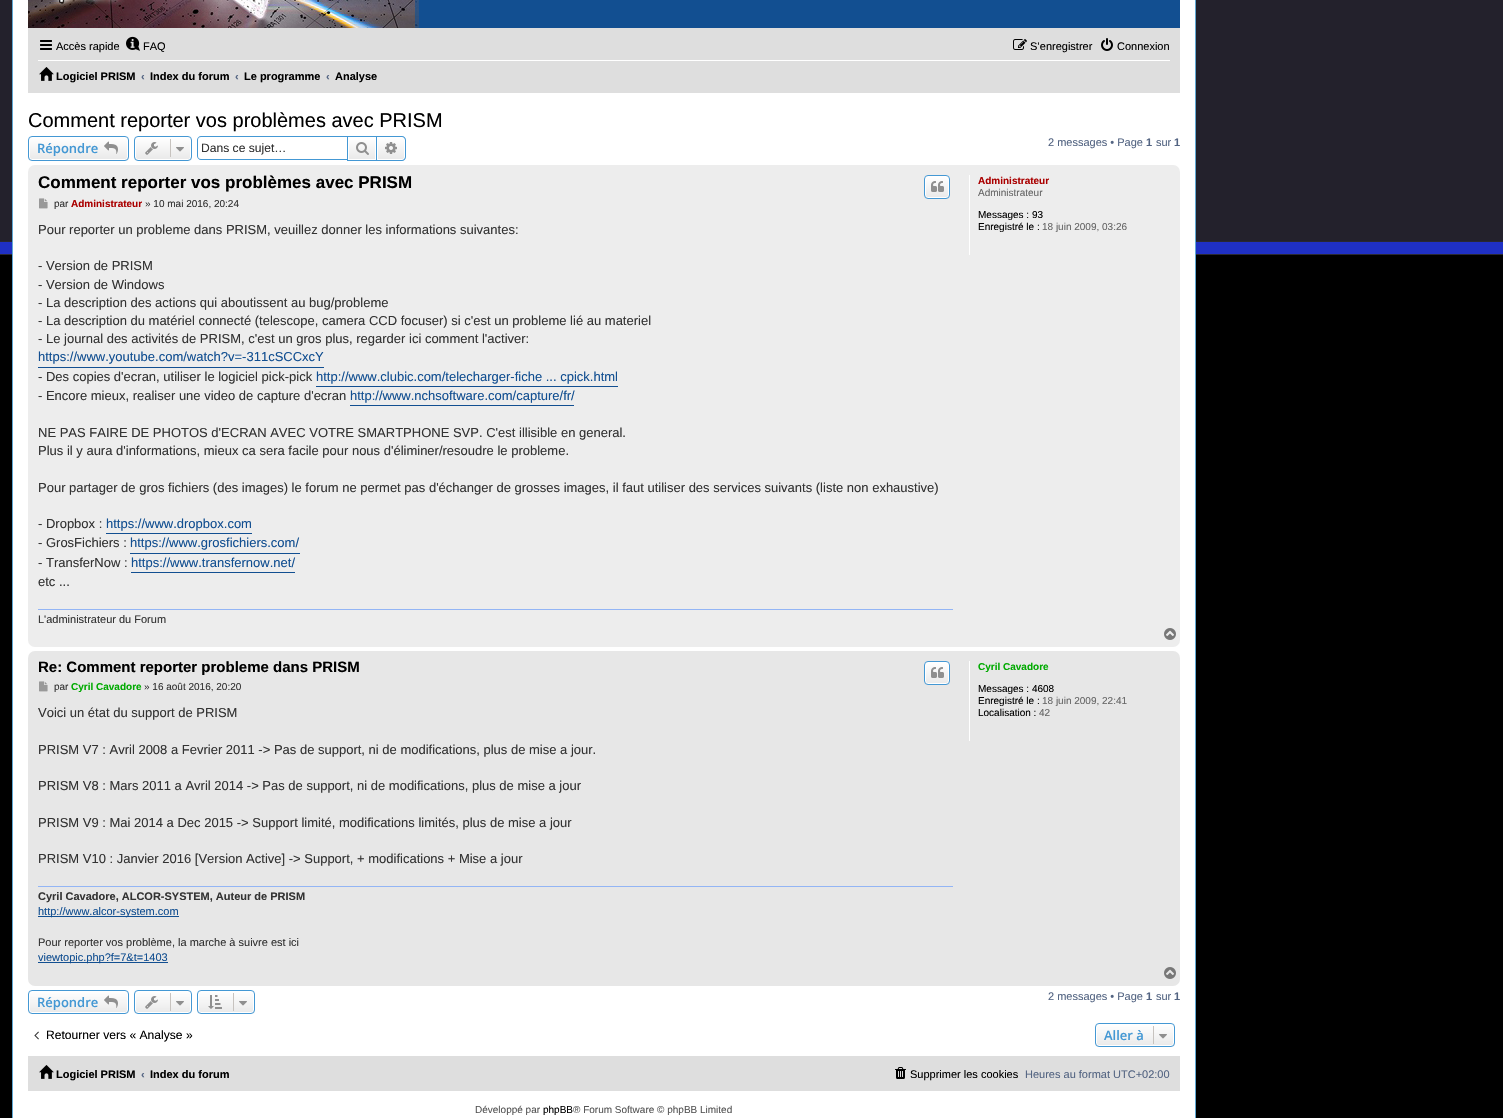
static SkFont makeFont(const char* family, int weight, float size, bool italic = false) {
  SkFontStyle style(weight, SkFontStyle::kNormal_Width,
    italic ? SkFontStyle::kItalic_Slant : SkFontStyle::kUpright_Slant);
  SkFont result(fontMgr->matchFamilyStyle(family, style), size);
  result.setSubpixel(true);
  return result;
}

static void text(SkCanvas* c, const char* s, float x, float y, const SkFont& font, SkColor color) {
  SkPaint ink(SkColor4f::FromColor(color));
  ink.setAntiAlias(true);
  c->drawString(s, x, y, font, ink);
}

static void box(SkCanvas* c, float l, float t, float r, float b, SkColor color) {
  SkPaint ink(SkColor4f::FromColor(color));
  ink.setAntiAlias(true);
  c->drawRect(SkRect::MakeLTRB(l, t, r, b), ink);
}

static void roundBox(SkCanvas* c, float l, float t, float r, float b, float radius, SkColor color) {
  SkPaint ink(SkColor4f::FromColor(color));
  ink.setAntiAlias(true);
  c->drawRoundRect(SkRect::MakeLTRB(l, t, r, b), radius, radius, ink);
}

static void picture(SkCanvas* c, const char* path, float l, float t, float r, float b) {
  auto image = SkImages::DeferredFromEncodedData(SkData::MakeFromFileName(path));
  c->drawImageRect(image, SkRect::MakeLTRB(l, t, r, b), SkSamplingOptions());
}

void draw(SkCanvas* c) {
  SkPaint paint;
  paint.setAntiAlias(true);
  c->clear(0xff000000);
  picture(c, "img_01.png", 0, 0, 1503, 255);
  paint.setColor(0xffffffff);
  c->drawRect(SkRect::MakeLTRB(12.5f, -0.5f, 1195.5f, 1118.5f), paint);
  paint.setStyle(SkPaint::kStroke_Style);
  paint.setStrokeWidth(1);
  paint.setColor(0xff5fa8d3);
  c->drawRect(SkRect::MakeLTRB(12.5f, -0.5f, 1195.5f, 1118.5f), paint);
  box(c, 419, 0, 1180, 28, 0xff124f91);
  picture(c, "img_02.png", 28, 0, 419, 28);
  box(c, 28, 28, 1180, 93, 0xffdedede);
  picture(c, "img_03.png", 40, 40, 52, 50);
  SkFont face1 = makeFont("Liberation Sans", 400, 11);
  text(c, "Accès rapide", 56, 50, face1, 0xff000000);
  picture(c, "img_04.png", 126, 36, 140, 51);
  text(c, "FAQ", 143, 50, face1, 0xff000000);
  picture(c, "img_05.png", 1013, 39, 1027, 50);
  text(c, "S’enregistrer", 1030, 50, face1, 0xff000000);
  picture(c, "img_06.png", 1101, 38, 1113, 51);
  text(c, "Connexion", 1117, 50, face1, 0xff000000);
  box(c, 38, 60, 1170, 61, 0xffffffff);
  picture(c, "img_07.png", 39, 67, 54, 81);
  SkFont face2 = makeFont("Liberation Sans", 700, 11);
  text(c, "Logiciel PRISM", 56, 80, face2, 0xff000000);
  text(c, "‹", 141, 80, face2, 0xff536482);
  text(c, "Index du forum", 150, 80, face2, 0xff000000);
  text(c, "‹", 235, 80, face2, 0xff536482);
  text(c, "Le programme", 244, 80, face2, 0xff000000);
  text(c, "‹", 326, 80, face2, 0xff536482);
  text(c, "Analyse", 335, 80, face2, 0xff000000);
  SkFont face3 = makeFont("Liberation Sans", 400, 20);
  text(c, "Comment reporter vos problèmes avec PRISM", 28, 127, face3, 0xff000000);
  c->save();
  c->clipPath(SkPathBuilder().moveTo(32, 136).lineTo(125, 136).cubicTo(127, 136, 129, 138, 129, 140).lineTo(129, 157).cubicTo(129, 159, 127, 161, 125, 161).lineTo(32, 161).cubicTo(30, 161, 28, 159, 28, 157).lineTo(28, 140).cubicTo(28, 138, 30, 136, 32, 136).close().detach(), true);
  paint.setStyle(SkPaint::kFill_Style);
  {
    const SkColor colors[] = {0xffffffff, 0xffe9e9e9};
    const float stops[] = {0, 1};
    const SkPoint ends[] = {{79, 137}, {79, 160}};
    paint.setShader(SkGradientShader::MakeLinear(ends, colors, stops, 2, SkTileMode::kClamp));
    paint.setAlpha(255);
  }
  c->drawRect(SkRect::MakeLTRB(28, 137, 129, 160), paint);
  c->restore();
  paint.setStyle(SkPaint::kStroke_Style);
  paint.setShader(nullptr);
  paint.setColor(0xffffffff);
  c->drawRoundRect(SkRect::MakeLTRB(29.5f, 137.5f, 127.5f, 159.5f), 2.5f, 2.5f, paint);
  paint.setColor(0xff4498d4);
  c->drawRoundRect(SkRect::MakeLTRB(28.5f, 136.5f, 128.5f, 160.5f), 3.5f, 3.5f, paint);
  SkFont face4 = makeFont("Open Sans", 600, 13);
  text(c, "Répondre", 37, 153, face4, 0xff4498d4);
  picture(c, "img_08.png", 104, 141, 118, 154);
  c->save();
  c->clipPath(SkPathBuilder().moveTo(138, 136).lineTo(188, 136).cubicTo(190, 136, 192, 138, 192, 140).lineTo(192, 157).cubicTo(192, 159, 190, 161, 188, 161).lineTo(138, 161).cubicTo(136, 161, 134, 159, 134, 157).lineTo(134, 140).cubicTo(134, 138, 136, 136, 138, 136).close().detach(), true);
  paint.setStyle(SkPaint::kFill_Style);
  {
    const SkColor colors[] = {0xffffffff, 0xffe9e9e9};
    const float stops[] = {0, 1};
    const SkPoint ends[] = {{163, 137}, {163, 160}};
    paint.setShader(SkGradientShader::MakeLinear(ends, colors, stops, 2, SkTileMode::kClamp));
    paint.setAlpha(255);
  }
  c->drawRect(SkRect::MakeLTRB(134, 137, 192, 160), paint);
  c->restore();
  paint.setStyle(SkPaint::kStroke_Style);
  paint.setShader(nullptr);
  paint.setColor(0xffffffff);
  c->drawRoundRect(SkRect::MakeLTRB(135.5f, 137.5f, 190.5f, 159.5f), 2.5f, 2.5f, paint);
  paint.setColor(0xff4498d4);
  c->drawRoundRect(SkRect::MakeLTRB(134.5f, 136.5f, 191.5f, 160.5f), 3.5f, 3.5f, paint);
  picture(c, "img_09.png", 145, 142, 158, 155);
  box(c, 170, 139, 171, 157, 0xffc7c3bf);
  picture(c, "img_10.png", 176, 147, 184, 152);
  paint.setStyle(SkPaint::kFill_Style);
  c->drawPath(SkPathBuilder(SkPathFillType::kEvenOdd).moveTo(201, 136).lineTo(347, 136).lineTo(347, 160).lineTo(201, 160).cubicTo(199, 160, 197, 158, 197, 156).lineTo(197, 140).cubicTo(197, 138, 199, 136, 201, 136).close().moveTo(201, 137).lineTo(347, 137).lineTo(347, 159).lineTo(201, 159).cubicTo(199, 159, 198, 158, 198, 156).lineTo(198, 140).cubicTo(198, 138, 199, 137, 201, 137).close().detach(), paint);
  SkFont face5 = makeFont("Liberation Sans", 400, 12.1f);
  text(c, "Dans ce sujet…", 201, 152, face5, 0xff333333);
  {
    const SkColor colors[] = {0xffffffff, 0xffe9e9e9};
    const float stops[] = {0, 1};
    const SkPoint ends[] = {{362, 137}, {362, 160}};
    paint.setShader(SkGradientShader::MakeLinear(ends, colors, stops, 2, SkTileMode::kClamp));
    paint.setAlpha(255);
  }
  c->drawRect(SkRect::MakeLTRB(349, 140, 375, 159), paint);
  paint.setStyle(SkPaint::kStroke_Style);
  paint.setShader(nullptr);
  paint.setColor(0xff4498d4);
  c->drawRect(SkRect::MakeLTRB(347.5f, 136.5f, 376.5f, 160.5f), paint);
  picture(c, "img_11.png", 356, 142, 369, 155);
  paint.setStyle(SkPaint::kFill_Style);
  {
    const SkColor colors[] = {0xffffffff, 0xffe9e9e9};
    const float stops[] = {0, 1};
    const SkPoint ends[] = {{391, 137}, {391, 160}};
    paint.setShader(SkGradientShader::MakeLinear(ends, colors, stops, 2, SkTileMode::kClamp));
    paint.setAlpha(255);
  }
  c->drawPath(SkPathBuilder().moveTo(377.5f, 137.5f).lineTo(402, 137.5f).cubicTo(403.5f, 137.5f, 404.5f, 138.5f, 404.5f, 140).lineTo(404.5f, 157).cubicTo(404.5f, 158.5f, 403.5f, 159.5f, 402, 159.5f).lineTo(377.5f, 159.5f).close().detach(), paint);
  paint.setStyle(SkPaint::kStroke_Style);
  paint.setShader(nullptr);
  paint.setColor(0xffffffff);
  c->drawPath(SkPathBuilder().moveTo(377.5f, 137.5f).lineTo(402, 137.5f).cubicTo(403.5f, 137.5f, 404.5f, 138.5f, 404.5f, 140).lineTo(404.5f, 157).cubicTo(404.5f, 158.5f, 403.5f, 159.5f, 402, 159.5f).lineTo(377.5f, 159.5f).close().detach(), paint);
  paint.setStyle(SkPaint::kFill_Style);
  paint.setColor(0xff4498d4);
  c->drawPath(SkPathBuilder(SkPathFillType::kEvenOdd).moveTo(377, 136).lineTo(402, 136).cubicTo(404, 136, 406, 138, 406, 140).lineTo(406, 157).cubicTo(406, 159, 404, 161, 402, 161).lineTo(377, 161).close().moveTo(377, 137).lineTo(402, 137).cubicTo(403.5f, 137, 405, 138.5f, 405, 140).lineTo(405, 157).cubicTo(405, 158.5f, 403.5f, 160, 402, 160).lineTo(377, 160).close().detach(), paint);
  picture(c, "img_12.png", 385, 142, 397, 154);
  text(c, "2 messages • Page", 1048, 146, face1, 0xff536482);
  text(c, "1", 1146, 146, face2, 0xff536482);
  text(c, "sur", 1156, 146, face1, 0xff536482);
  text(c, "1", 1174, 146, face2, 0xff536482);
  roundBox(c, 28, 165, 1180, 647, 7, 0xffededed);
  SkFont face6 = makeFont("Liberation Sans", 700, 17);
  text(c, "Comment reporter vos problèmes avec PRISM", 38, 188, face6, 0xff000000);
  c->save();
  c->clipPath(SkPathBuilder().moveTo(928, 175).lineTo(946, 175).cubicTo(948, 175, 950, 177, 950, 179).lineTo(950, 195).cubicTo(950, 197, 948, 199, 946, 199).lineTo(928, 199).cubicTo(926, 199, 924, 197, 924, 195).lineTo(924, 179).cubicTo(924, 177, 926, 175, 928, 175).close().detach(), true);
  {
    const SkColor colors[] = {0xffffffff, 0xffe9e9e9};
    const float stops[] = {0, 1};
    const SkPoint ends[] = {{937, 176}, {937, 198}};
    paint.setShader(SkGradientShader::MakeLinear(ends, colors, stops, 2, SkTileMode::kClamp));
    paint.setAlpha(255);
  }
  c->drawRect(SkRect::MakeLTRB(924, 176, 950, 198), paint);
  c->restore();
  paint.setStyle(SkPaint::kStroke_Style);
  paint.setShader(nullptr);
  paint.setColor(0xffffffff);
  c->drawRoundRect(SkRect::MakeLTRB(925.5f, 176.5f, 948.5f, 197.5f), 2.5f, 2.5f, paint);
  paint.setColor(0xff4498d4);
  c->drawRoundRect(SkRect::MakeLTRB(924.5f, 175.5f, 949.5f, 198.5f), 3.5f, 3.5f, paint);
  picture(c, "img_13.png", 931, 181, 944, 192);
  picture(c, "img_14.png", 39, 198, 48, 209);
  SkFont face7 = makeFont("Liberation Sans", 400, 10);
  text(c, "par", 54, 207, face7, 0xff333333);
  SkFont face8 = makeFont("Liberation Sans", 700, 10);
  text(c, "Administrateur", 71, 207, face8, 0xffaa0000);
  text(c, "» 10 mai 2016, 20:24", 145, 207, face7, 0xff333333);
  SkFont face9 = makeFont("Liberation Sans", 400, 13);
  text(c, "Pour reporter un probleme dans PRISM, veuillez donner les informations suivantes:", 38, 234, face9, 0xff333333);
  text(c, "- Version de PRISM", 38, 270, face9, 0xff333333);
  text(c, "- Version de Windows", 38, 289, face9, 0xff333333);
  text(c, "- La description des actions qui aboutissent au bug/probleme", 38, 307, face9, 0xff333333);
  text(c, "- La description du matériel connecté (telescope, camera CCD focuser) si c'est un probleme lié au materiel", 38, 325, face9, 0xff333333);
  text(c, "- Le journal des activités de PRISM, c'est un gros plus, regarder ici comment l'activer:", 38, 343, face9, 0xff333333);
  box(c, 38, 367, 324, 368, 0xff124f91);
  text(c, "https://www.youtube.com/watch?v=-311cSCCxcY", 38, 361, face9, 0xff124f91);
  text(c, "- Des copies d'ecran, utiliser le logiciel pick-pick", 38, 381, face9, 0xff333333);
  box(c, 316, 386, 618, 387, 0xff124f91);
  text(c, "http://www.clubic.com/telecharger-fiche ... cpick.html", 316, 381, face9, 0xff124f91);
  text(c, "- Encore mieux, realiser une video de capture d'ecran", 38, 400, face9, 0xff333333);
  box(c, 350, 405, 574, 406, 0xff124f91);
  text(c, "http://www.nchsoftware.com/capture/fr/", 350, 400, face9, 0xff124f91);
  text(c, "NE PAS FAIRE DE PHOTOS d'ECRAN AVEC VOTRE SMARTPHONE SVP. C'est illisible en general.", 38, 437, face9, 0xff333333);
  text(c, "Plus il y aura d'informations, mieux ca sera facile pour nous d'éliminer/resoudre le probleme.", 38, 455, face9, 0xff333333);
  text(c, "Pour partager de gros fichiers (des images) le forum ne permet pas d'échanger de grosses images, il faut utiliser des services suivants (liste non exhaustive)", 38, 492, face9, 0xff333333);
  text(c, "- Dropbox :", 38, 528, face9, 0xff333333);
  box(c, 106, 533, 252, 534, 0xff124f91);
  text(c, "https://www.dropbox.com", 106, 528, face9, 0xff124f91);
  text(c, "- GrosFichiers :", 38, 547, face9, 0xff333333);
  box(c, 130, 553, 300, 554, 0xff124f91);
  text(c, "https://www.grosfichiers.com/", 130, 547, face9, 0xff124f91);
  text(c, "- TransferNow :", 38, 567, face9, 0xff333333);
  box(c, 131, 572, 295, 573, 0xff124f91);
  text(c, "https://www.transfernow.net/", 131, 567, face9, 0xff124f91);
  text(c, "etc ...", 38, 586, face9, 0xff333333);
  box(c, 38, 609, 953, 610, 0xff93b5f5);
  text(c, "L'administrateur du Forum", 38, 623, face1, 0xff333333);
  box(c, 969, 175, 970, 255, 0xffffffff);
  text(c, "Administrateur", 978, 184, face8, 0xffaa0000);
  text(c, "Administrateur", 978, 196, face7, 0xff666666);
  text(c, "Messages : 93", 978, 218, face7, 0xff000000);
  text(c, "Enregistré le :", 978, 230, face7, 0xff000000);
  text(c, "18 juin 2009, 03:26", 1042, 230, face7, 0xff666666);
  picture(c, "img_15.png", 1164, 628, 1176, 640);
  roundBox(c, 28, 651, 1180, 986, 7, 0xffe7e7e7);
  SkFont face10 = makeFont("Liberation Sans", 700, 15);
  text(c, "Re: Comment reporter probleme dans PRISM", 38, 672, face10, 0xff000000);
  c->save();
  c->clipPath(SkPathBuilder().moveTo(928, 661).lineTo(946, 661).cubicTo(948, 661, 950, 663, 950, 665).lineTo(950, 681).cubicTo(950, 683, 948, 685, 946, 685).lineTo(928, 685).cubicTo(926, 685, 924, 683, 924, 681).lineTo(924, 665).cubicTo(924, 663, 926, 661, 928, 661).close().detach(), true);
  paint.setStyle(SkPaint::kFill_Style);
  {
    const SkColor colors[] = {0xffffffff, 0xffe9e9e9};
    const float stops[] = {0, 1};
    const SkPoint ends[] = {{937, 662}, {937, 684}};
    paint.setShader(SkGradientShader::MakeLinear(ends, colors, stops, 2, SkTileMode::kClamp));
    paint.setAlpha(255);
  }
  c->drawRect(SkRect::MakeLTRB(924, 662, 950, 684), paint);
  c->restore();
  paint.setStyle(SkPaint::kStroke_Style);
  paint.setShader(nullptr);
  paint.setColor(0xffffffff);
  c->drawRoundRect(SkRect::MakeLTRB(925.5f, 662.5f, 948.5f, 683.5f), 2.5f, 2.5f, paint);
  paint.setColor(0xff4498d4);
  c->drawRoundRect(SkRect::MakeLTRB(924.5f, 661.5f, 949.5f, 684.5f), 3.5f, 3.5f, paint);
  picture(c, "img_13.png", 931, 667, 944, 678);
  picture(c, "img_16.png", 39, 681, 48, 692);
  text(c, "par", 54, 690, face7, 0xff333333);
  text(c, "Cyril Cavadore", 71, 690, face8, 0xff00aa00);
  text(c, "» 16 août 2016, 20:20", 144, 690, face7, 0xff333333);
  text(c, "Voici un état du support de PRISM", 38, 717, face9, 0xff333333);
  text(c, "PRISM V7 : Avril 2008 a Fevrier 2011 -> Pas de support, ni de modifications, plus de mise a jour.", 38, 754, face9, 0xff333333);
  text(c, "PRISM V8 : Mars 2011 a Avril 2014 -> Pas de support, ni de modifications, plus de mise a jour", 38, 790, face9, 0xff333333);
  text(c, "PRISM V9 : Mai 2014 a Dec 2015 -> Support limité, modifications limités, plus de mise a jour", 38, 827, face9, 0xff333333);
  text(c, "PRISM V10 : Janvier 2016 [Version Active] -> Support, + modifications + Mise a jour", 38, 863, face9, 0xff333333);
  box(c, 38, 886, 953, 887, 0xff93b5f5);
  text(c, "Cyril Cavadore, ALCOR-SYSTEM, Auteur de PRISM", 38, 900, face2, 0xff333333);
  box(c, 38, 916, 179, 917, 0xff124f91);
  text(c, "http://www.alcor-system.com", 38, 915, face1, 0xff124f91);
  text(c, "Pour reporter vos problème, la marche à suivre est ici", 38, 946, face1, 0xff333333);
  box(c, 38, 962, 168, 963, 0xff124f91);
  text(c, "viewtopic.php?f=7&t=1403", 38, 961, face1, 0xff124f91);
  box(c, 969, 661, 970, 741, 0xffffffff);
  text(c, "Cyril Cavadore", 978, 670, face8, 0xff00aa00);
  text(c, "Messages : 4608", 978, 692, face7, 0xff000000);
  text(c, "Enregistré le :", 978, 704, face7, 0xff000000);
  text(c, "18 juin 2009, 22:41", 1042, 704, face7, 0xff666666);
  text(c, "Localisation :", 978, 716, face7, 0xff000000);
  text(c, "42", 1039, 716, face7, 0xff666666);
  picture(c, "img_17.png", 1164, 967, 1176, 979);
  c->save();
  c->clipPath(SkPathBuilder().moveTo(32, 990).lineTo(125, 990).cubicTo(127, 990, 129, 992, 129, 994).lineTo(129, 1010).cubicTo(129, 1012, 127, 1014, 125, 1014).lineTo(32, 1014).cubicTo(30, 1014, 28, 1012, 28, 1010).lineTo(28, 994).cubicTo(28, 992, 30, 990, 32, 990).close().detach(), true);
  paint.setStyle(SkPaint::kFill_Style);
  {
    const SkColor colors[] = {0xffffffff, 0xffe9e9e9};
    const float stops[] = {0, 1};
    const SkPoint ends[] = {{79, 991}, {79, 1013}};
    paint.setShader(SkGradientShader::MakeLinear(ends, colors, stops, 2, SkTileMode::kClamp));
    paint.setAlpha(255);
  }
  c->drawRect(SkRect::MakeLTRB(28, 991, 129, 1013), paint);
  c->restore();
  paint.setStyle(SkPaint::kStroke_Style);
  paint.setShader(nullptr);
  paint.setColor(0xffffffff);
  c->drawRoundRect(SkRect::MakeLTRB(29.5f, 991.5f, 127.5f, 1012.5f), 2.5f, 2.5f, paint);
  paint.setColor(0xff4498d4);
  c->drawRoundRect(SkRect::MakeLTRB(28.5f, 990.5f, 128.5f, 1013.5f), 3.5f, 3.5f, paint);
  text(c, "Répondre", 37, 1007, face4, 0xff4498d4);
  picture(c, "img_08.png", 104, 995, 118, 1008);
  c->save();
  c->clipPath(SkPathBuilder().moveTo(138, 990).lineTo(188, 990).cubicTo(190, 990, 192, 992, 192, 994).lineTo(192, 1010).cubicTo(192, 1012, 190, 1014, 188, 1014).lineTo(138, 1014).cubicTo(136, 1014, 134, 1012, 134, 1010).lineTo(134, 994).cubicTo(134, 992, 136, 990, 138, 990).close().detach(), true);
  paint.setStyle(SkPaint::kFill_Style);
  {
    const SkColor colors[] = {0xffffffff, 0xffe9e9e9};
    const float stops[] = {0, 1};
    const SkPoint ends[] = {{163, 991}, {163, 1013}};
    paint.setShader(SkGradientShader::MakeLinear(ends, colors, stops, 2, SkTileMode::kClamp));
    paint.setAlpha(255);
  }
  c->drawRect(SkRect::MakeLTRB(134, 991, 192, 1013), paint);
  c->restore();
  paint.setStyle(SkPaint::kStroke_Style);
  paint.setShader(nullptr);
  paint.setColor(0xffffffff);
  c->drawRoundRect(SkRect::MakeLTRB(135.5f, 991.5f, 190.5f, 1012.5f), 2.5f, 2.5f, paint);
  paint.setColor(0xff4498d4);
  c->drawRoundRect(SkRect::MakeLTRB(134.5f, 990.5f, 191.5f, 1013.5f), 3.5f, 3.5f, paint);
  picture(c, "img_09.png", 145, 996, 158, 1009);
  box(c, 170, 993, 171, 1011, 0xffc7c3bf);
  picture(c, "img_10.png", 176, 1001, 184, 1006);
  c->save();
  c->clipPath(SkPathBuilder().moveTo(201, 990).lineTo(251, 990).cubicTo(253, 990, 255, 992, 255, 994).lineTo(255, 1010).cubicTo(255, 1012, 253, 1014, 251, 1014).lineTo(201, 1014).cubicTo(199, 1014, 197, 1012, 197, 1010).lineTo(197, 994).cubicTo(197, 992, 199, 990, 201, 990).close().detach(), true);
  paint.setStyle(SkPaint::kFill_Style);
  {
    const SkColor colors[] = {0xffffffff, 0xffe9e9e9};
    const float stops[] = {0, 1};
    const SkPoint ends[] = {{226, 991}, {226, 1013}};
    paint.setShader(SkGradientShader::MakeLinear(ends, colors, stops, 2, SkTileMode::kClamp));
    paint.setAlpha(255);
  }
  c->drawRect(SkRect::MakeLTRB(197, 991, 255, 1013), paint);
  c->restore();
  paint.setStyle(SkPaint::kStroke_Style);
  paint.setShader(nullptr);
  paint.setColor(0xffffffff);
  c->drawRoundRect(SkRect::MakeLTRB(198.5f, 991.5f, 253.5f, 1012.5f), 2.5f, 2.5f, paint);
  paint.setColor(0xff4498d4);
  c->drawRoundRect(SkRect::MakeLTRB(197.5f, 990.5f, 254.5f, 1013.5f), 3.5f, 3.5f, paint);
  picture(c, "img_18.png", 208, 995, 222, 1009);
  box(c, 233, 993, 234, 1011, 0xffc7c3bf);
  picture(c, "img_10.png", 239, 1001, 247, 1006);
  text(c, "2 messages • Page", 1048, 1000, face1, 0xff536482);
  text(c, "1", 1146, 1000, face2, 0xff536482);
  text(c, "sur", 1156, 1000, face1, 0xff536482);
  text(c, "1", 1174, 1000, face2, 0xff536482);
  picture(c, "img_19.png", 34, 1031, 39, 1040);
  text(c, "Retourner vers « Analyse »", 46, 1039, face5, 0xff000000);
  c->save();
  c->clipPath(SkPathBuilder().moveTo(1099, 1023).lineTo(1171, 1023).cubicTo(1173, 1023, 1175, 1025, 1175, 1027).lineTo(1175, 1043).cubicTo(1175, 1045, 1173, 1047, 1171, 1047).lineTo(1099, 1047).cubicTo(1097, 1047, 1095, 1045, 1095, 1043).lineTo(1095, 1027).cubicTo(1095, 1025, 1097, 1023, 1099, 1023).close().detach(), true);
  paint.setStyle(SkPaint::kFill_Style);
  {
    const SkColor colors[] = {0xffffffff, 0xffe9e9e9};
    const float stops[] = {0, 1};
    const SkPoint ends[] = {{1135, 1024}, {1135, 1046}};
    paint.setShader(SkGradientShader::MakeLinear(ends, colors, stops, 2, SkTileMode::kClamp));
    paint.setAlpha(255);
  }
  c->drawRect(SkRect::MakeLTRB(1095, 1024, 1175, 1046), paint);
  c->restore();
  paint.setStyle(SkPaint::kStroke_Style);
  paint.setShader(nullptr);
  paint.setColor(0xffffffff);
  c->drawRoundRect(SkRect::MakeLTRB(1096.5f, 1024.5f, 1173.5f, 1045.5f), 2.5f, 2.5f, paint);
  paint.setColor(0xff4498d4);
  c->drawRoundRect(SkRect::MakeLTRB(1095.5f, 1023.5f, 1174.5f, 1046.5f), 3.5f, 3.5f, paint);
  text(c, "Aller à", 1104, 1040, face4, 0xff4498d4);
  box(c, 1153, 1026, 1154, 1044, 0xffc7c3bf);
  picture(c, "img_10.png", 1159, 1034, 1167, 1039);
  box(c, 28, 1056, 1180, 1091, 0xffdedede);
  picture(c, "img_07.png", 39, 1065, 54, 1079);
  text(c, "Logiciel PRISM", 56, 1078, face2, 0xff000000);
  text(c, "‹", 141, 1078, face2, 0xff536482);
  text(c, "Index du forum", 150, 1078, face2, 0xff000000);
  picture(c, "img_20.png", 895, 1067, 906, 1079);
  text(c, "Supprimer les cookies", 910, 1078, face1, 0xff000000);
  text(c, "Heures au format UTC+02:00", 1025, 1078, face1, 0xff536482);
  text(c, "Développé par", 475, 1113, face7, 0xff555555);
  text(c, "phpBB", 543, 1113, face7, 0xff000000);
  text(c, "® Forum Software © phpBB Limited", 573, 1113, face7, 0xff555555);
}
